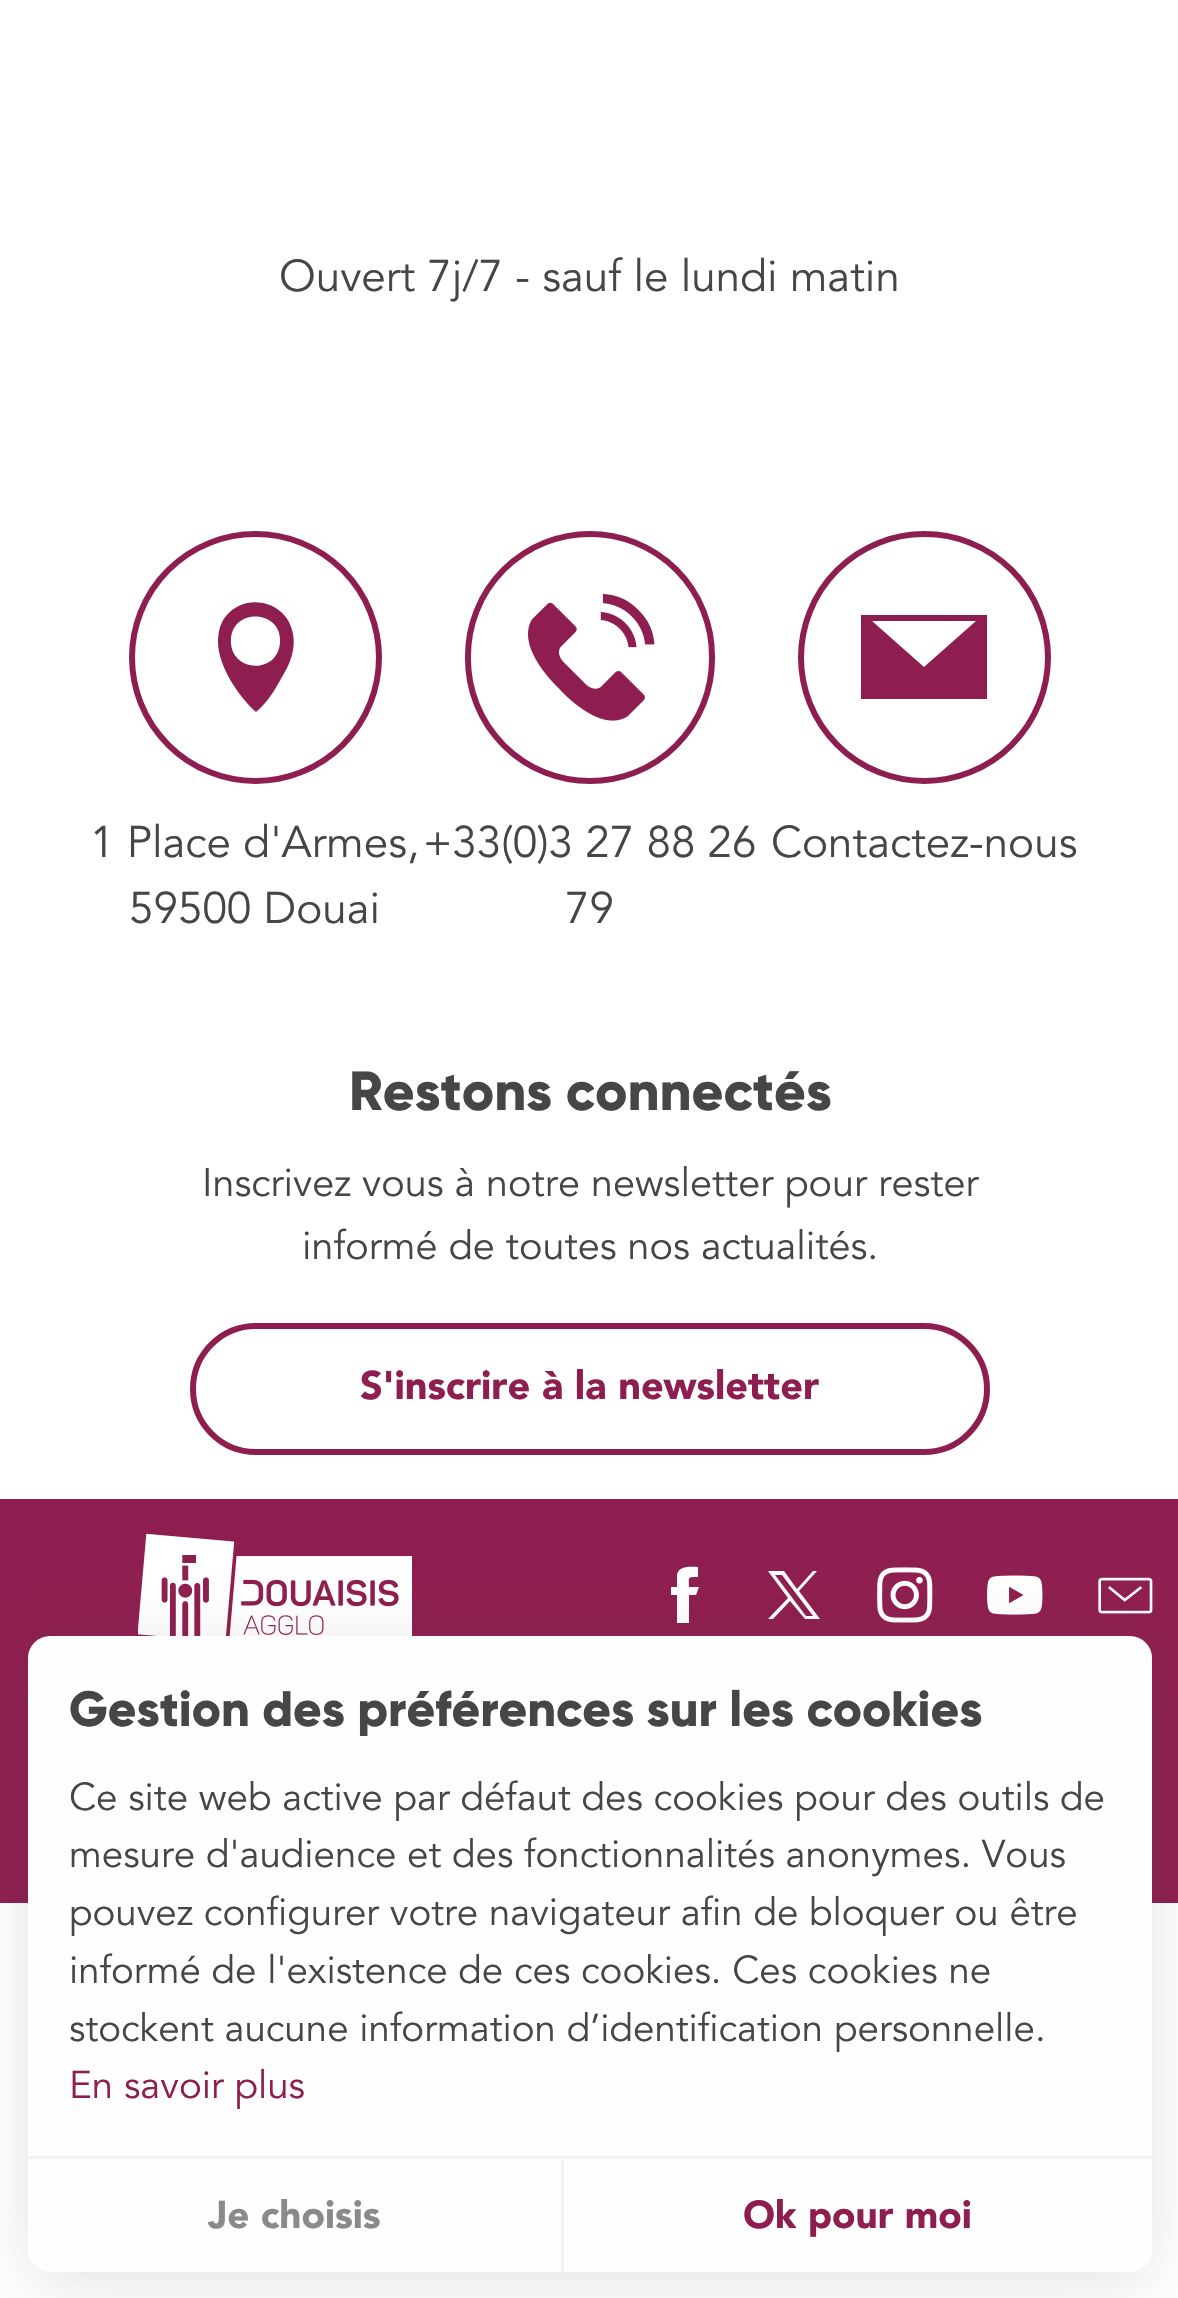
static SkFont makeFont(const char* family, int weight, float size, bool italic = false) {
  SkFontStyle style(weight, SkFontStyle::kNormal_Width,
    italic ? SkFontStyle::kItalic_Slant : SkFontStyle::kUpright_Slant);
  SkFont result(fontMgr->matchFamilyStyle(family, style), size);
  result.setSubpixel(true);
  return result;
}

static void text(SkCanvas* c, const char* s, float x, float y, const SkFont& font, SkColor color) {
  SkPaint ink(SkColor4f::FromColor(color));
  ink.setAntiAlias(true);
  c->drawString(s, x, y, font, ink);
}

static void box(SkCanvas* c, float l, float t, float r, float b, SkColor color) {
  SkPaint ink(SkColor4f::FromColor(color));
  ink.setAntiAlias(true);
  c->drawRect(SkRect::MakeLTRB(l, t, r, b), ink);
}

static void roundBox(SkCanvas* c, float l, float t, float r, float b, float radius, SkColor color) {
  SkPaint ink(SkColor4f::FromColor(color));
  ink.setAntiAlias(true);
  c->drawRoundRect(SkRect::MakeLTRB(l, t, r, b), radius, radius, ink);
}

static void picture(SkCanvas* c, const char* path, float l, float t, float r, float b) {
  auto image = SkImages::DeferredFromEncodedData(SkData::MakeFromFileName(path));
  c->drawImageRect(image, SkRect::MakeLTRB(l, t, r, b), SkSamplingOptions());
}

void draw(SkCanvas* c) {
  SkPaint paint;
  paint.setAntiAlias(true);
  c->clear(0xffffffff);
  SkFont face1 = makeFont("Avenir", 400, 44);
  text(c, "Ouvert 7j/7 - sauf le lundi matin", 279, 291, face1, 0xff464646);
  paint.setStyle(SkPaint::kStroke_Style);
  paint.setStrokeWidth(6);
  paint.setColor(0xff8e1e4f);
  c->drawCircle(255.5f, 657.5f, 123.5f, paint);
  paint.setStyle(SkPaint::kFill_Style);
  c->drawPath(SkPathBuilder().moveTo(256, 712).cubicTo(239, 697, 218, 666, 218, 642).cubicTo(218, 633, 220, 623, 226, 616).cubicTo(247, 591, 288, 602, 293, 634).cubicTo(296, 649, 290, 664, 282, 677).cubicTo(275, 690, 267, 703, 256, 712).close().moveTo(231, 638).cubicTo(228, 672, 277, 676, 280, 643).cubicTo(283, 610, 234, 607, 231, 638).close().detach(), paint);
  text(c, "1 Place d'Armes,", 90, 857, face1, 0xff464646);
  text(c, "59500 Douai", 129, 923, face1, 0xff464646);
  paint.setStyle(SkPaint::kStroke_Style);
  c->drawRoundRect(SkRect::MakeLTRB(468, 534, 712, 781), 122, 122, paint);
  picture(c, "img_01.png", 528, 593, 655, 721);
  text(c, "+33(0)3 27 88 26", 423, 857, face1, 0xff464646);
  text(c, "79", 565, 923, face1, 0xff464646);
  c->drawCircle(924.5f, 657.5f, 123.5f, paint);
  paint.setStyle(SkPaint::kFill_Style);
  c->drawPath(SkPathBuilder().moveTo(861, 615).lineTo(861, 699).lineTo(987, 699).lineTo(987, 615).close().moveTo(924, 667).lineTo(872, 621).lineTo(976, 621).close().detach(), paint);
  text(c, "Contactez-nous", 771, 857, face1, 0xff464646);
  SkFont face2 = makeFont("Gilroy", 800, 55);
  text(c, "Restons connectés", 349, 1110, face2, 0xff464646);
  SkFont face3 = makeFont("Avenir", 400, 39.6f);
  text(c, "Inscrivez vous à notre newsletter pour rester", 202, 1196, face3, 0xff464646);
  text(c, "informé de toutes nos actualités.", 302, 1259, face3, 0xff464646);
  paint.setStyle(SkPaint::kStroke_Style);
  c->drawRoundRect(SkRect::MakeLTRB(193, 1326, 987, 1452), 63, 63, paint);
  SkFont face4 = makeFont("Avenir", 900, 39.6f);
  text(c, "S'inscrire à la newsletter", 360, 1399, face4, 0xff8e1e4f);
  box(c, 0, 1499, 1178, 1903, 0xff8e1e4f);
  picture(c, "img_02.png", 138, 1534, 412, 1636);
  paint.setStyle(SkPaint::kFill_Style);
  paint.setColor(0xfffefefe);
  c->drawPath(SkPathBuilder().moveTo(699, 1587).lineTo(689, 1587).cubicTo(689, 1577, 687, 1577, 698, 1577).lineTo(698, 1567).cubicTo(691, 1567, 679, 1565, 677, 1575).lineTo(677, 1587).lineTo(671, 1587).lineTo(671, 1595).lineTo(677, 1595).lineTo(677, 1623).lineTo(689, 1623).lineTo(689, 1595).lineTo(696, 1595).close().detach(), paint);
  c->drawPath(SkPathBuilder().moveTo(768, 1571).lineTo(788, 1598).lineTo(768, 1619).lineTo(773, 1619).lineTo(790, 1601).lineTo(805, 1619).lineTo(820, 1619).lineTo(799, 1591).lineTo(817, 1571).lineTo(813, 1571).lineTo(797, 1589).lineTo(784, 1571).close().moveTo(775, 1575).lineTo(782, 1575).lineTo(813, 1616).lineTo(806, 1616).close().detach(), paint);
  picture(c, "img_03.png", 877, 1567, 933, 1623);
  picture(c, "img_04.png", 987, 1575, 1043, 1615);
  picture(c, "img_05.png", 1098, 1577, 1153, 1614);
  paint.setColor(0x26464646);
  paint.setMaskFilter(SkMaskFilter::MakeBlur(kNormal_SkBlurStyle, 33));
  c->drawRoundRect(SkRect::MakeLTRB(28, 1647, 1152, 2283), 22, 22, paint);
  paint.setMaskFilter(nullptr);
  roundBox(c, 28, 1636, 1152, 2272, 22, 0xfffefefe);
  SkFont face5 = makeFont("Gilroy", 800, 49.5f);
  text(c, "Gestion des préférences sur les cookies", 69, 1726, face5, 0xff464646);
  SkFont face6 = makeFont("Avenir", 400, 38.5f);
  text(c, "Ce site web active par défaut des cookies pour des outils de", 69, 1810, face6, 0xff464646);
  text(c, "mesure d'audience et des fonctionnalités anonymes. Vous", 69, 1867, face6, 0xff464646);
  text(c, "pouvez configurer votre navigateur afin de bloquer ou être", 69, 1925, face6, 0xff464646);
  text(c, "informé de l'existence de ces cookies. Ces cookies ne", 69, 1983, face6, 0xff464646);
  text(c, "stockent aucune information d’identification personnelle.", 69, 2041, face6, 0xff464646);
  text(c, "En savoir plus", 69, 2098, face6, 0xff8e1e4f);
  box(c, 28, 2156, 1152, 2159, 0xfff3f3f3);
  box(c, 561, 2159, 564, 2272, 0xfff3f3f3);
  SkFont face7 = makeFont("Avenir", 900, 38.5f);
  text(c, "Je choisis", 208, 2228, face7, 0xff8a8a8a);
  text(c, "Ok pour moi", 743, 2228, face7, 0xff8e1e4f);
}
